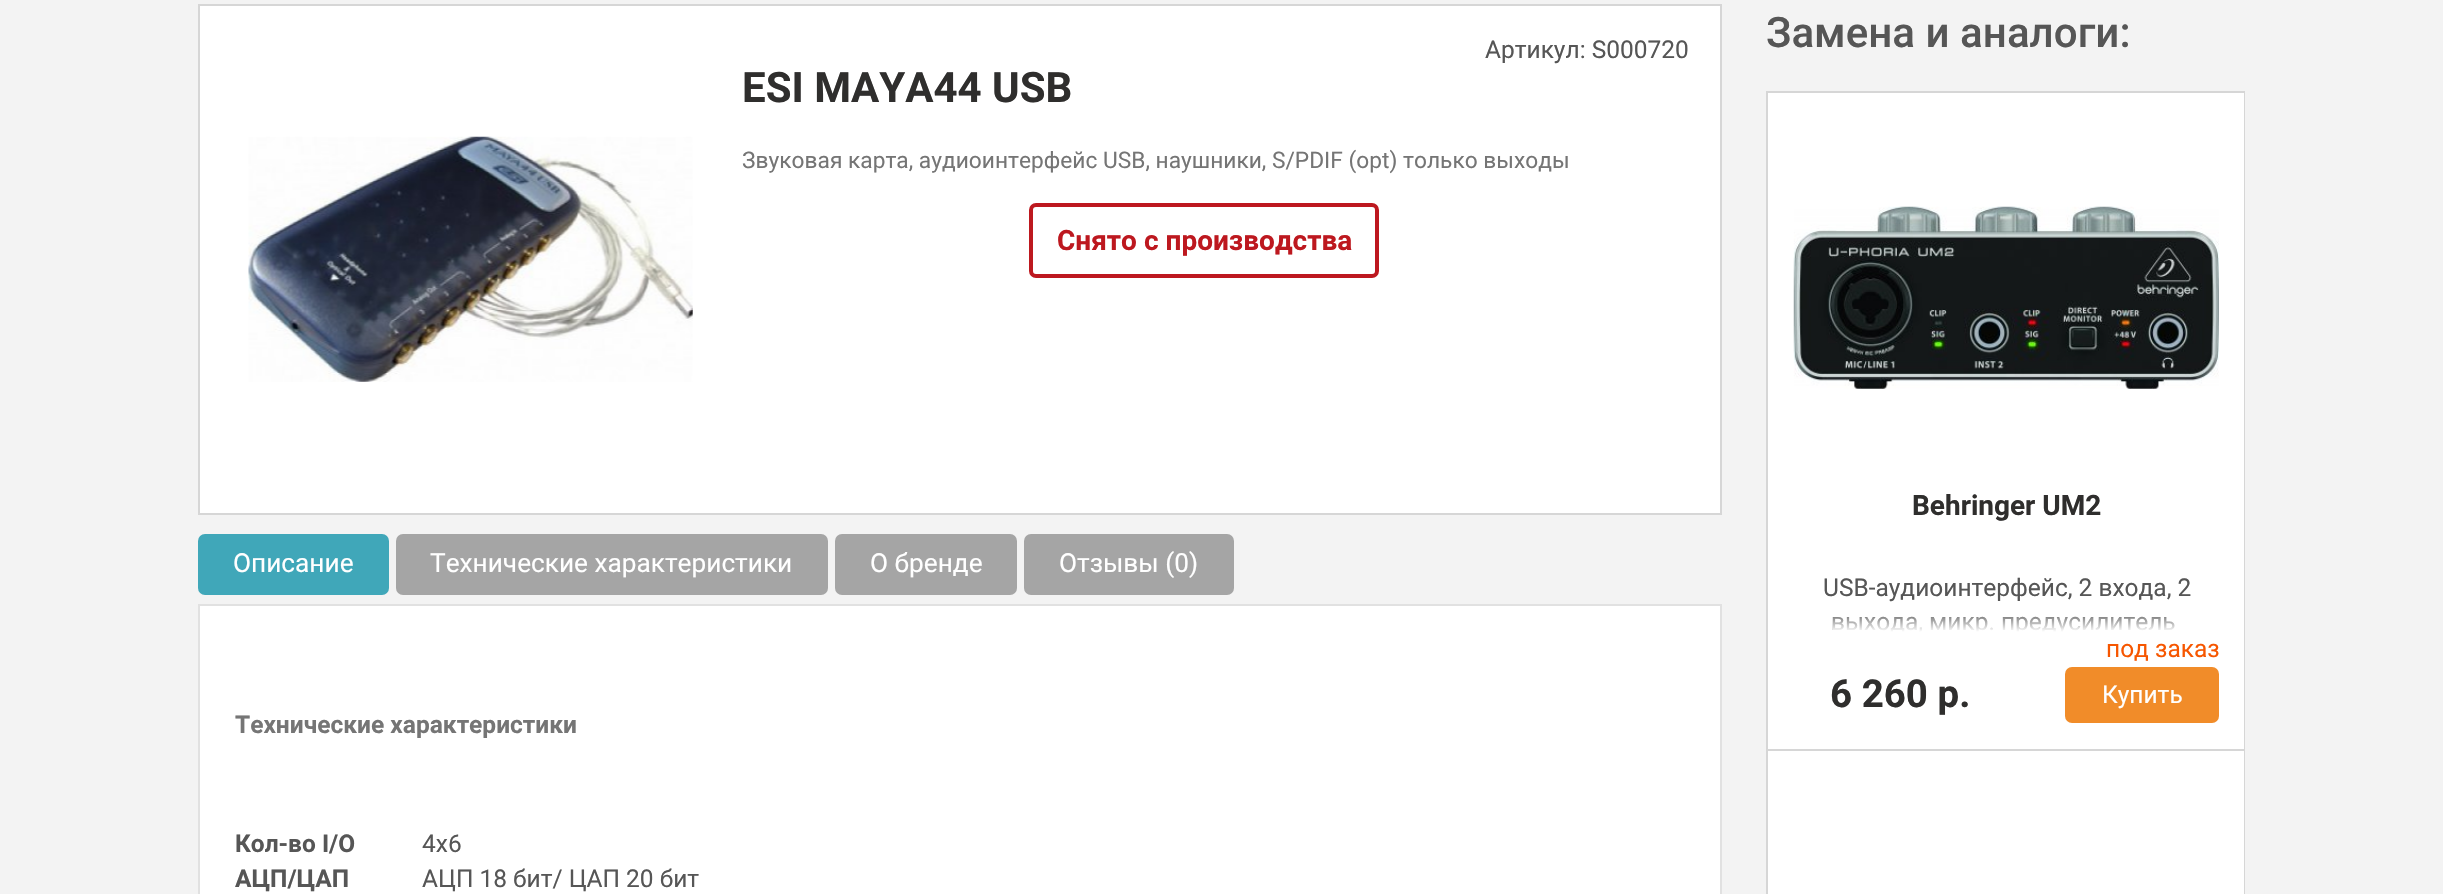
static SkFont makeFont(const char* family, int weight, float size, bool italic = false) {
  SkFontStyle style(weight, SkFontStyle::kNormal_Width,
    italic ? SkFontStyle::kItalic_Slant : SkFontStyle::kUpright_Slant);
  SkFont result(fontMgr->matchFamilyStyle(family, style), size);
  result.setSubpixel(true);
  return result;
}

static void text(SkCanvas* c, const char* s, float x, float y, const SkFont& font, SkColor color) {
  SkPaint ink(SkColor4f::FromColor(color));
  ink.setAntiAlias(true);
  c->drawString(s, x, y, font, ink);
}

static void box(SkCanvas* c, float l, float t, float r, float b, SkColor color) {
  SkPaint ink(SkColor4f::FromColor(color));
  ink.setAntiAlias(true);
  c->drawRect(SkRect::MakeLTRB(l, t, r, b), ink);
}

static void roundBox(SkCanvas* c, float l, float t, float r, float b, float radius, SkColor color) {
  SkPaint ink(SkColor4f::FromColor(color));
  ink.setAntiAlias(true);
  c->drawRoundRect(SkRect::MakeLTRB(l, t, r, b), radius, radius, ink);
}

static void picture(SkCanvas* c, const char* path, float l, float t, float r, float b) {
  auto image = SkImages::DeferredFromEncodedData(SkData::MakeFromFileName(path));
  c->drawImageRect(image, SkRect::MakeLTRB(l, t, r, b), SkSamplingOptions());
}

void draw(SkCanvas* c) {
  SkPaint paint;
  paint.setAntiAlias(true);
  c->clear(0xfff3f3f3);
  paint.setColor(0xffffffff);
  c->drawRect(SkRect::MakeLTRB(199, 5, 1721, 514), paint);
  paint.setStyle(SkPaint::kStroke_Style);
  paint.setStrokeWidth(2);
  paint.setColor(0xffd6d6d6);
  c->drawRect(SkRect::MakeLTRB(199, 5, 1721, 514), paint);
  picture(c, "img_01.png", 248, 136, 693, 382);
  SkFont face1 = makeFont("Roboto", 400, 24.5f);
  text(c, "Артикул: S000720", 1485, 58, face1, 0xff565656);
  SkFont face2 = makeFont("Roboto", 700, 42);
  text(c, "ESI MAYA44 USB", 742, 102, face2, 0xff2f2e2d);
  SkFont face3 = makeFont("Roboto", 400, 22.75f);
  text(c, "Звуковая карта, аудиоинтерфейс USB, наушники, S/PDIF (opt) только выходы", 742, 168, face3, 0xff757575);
  paint.setStrokeWidth(4);
  paint.setColor(0xffbd181f);
  c->drawRoundRect(SkRect::MakeLTRB(1031, 205, 1377, 276), 5, 5, paint);
  SkFont face4 = makeFont("Roboto", 700, 28);
  text(c, "Снято с производства", 1057, 250, face4, 0xffbd181f);
  roundBox(c, 198, 534, 389, 595, 7, 0xff40a7b9);
  SkFont face5 = makeFont("Roboto", 400, 26.25f);
  text(c, "Описание", 233, 572, face5, 0xffffffff);
  roundBox(c, 396, 534, 828, 595, 7, 0xffa5a5a5);
  text(c, "Технические характеристики", 430, 572, face5, 0xffffffff);
  roundBox(c, 835, 534, 1017, 595, 7, 0xffa5a5a5);
  text(c, "О бренде", 870, 572, face5, 0xffffffff);
  roundBox(c, 1024, 534, 1234, 595, 7, 0xffa5a5a5);
  text(c, "Отзывы (0)", 1059, 572, face5, 0xffffffff);
  paint.setStyle(SkPaint::kFill_Style);
  paint.setColor(0xffffffff);
  c->drawRect(SkRect::MakeLTRB(199, 605, 1721, 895), paint);
  paint.setStyle(SkPaint::kStroke_Style);
  paint.setStrokeWidth(2);
  paint.setColor(0xffe1e1e1);
  c->drawRect(SkRect::MakeLTRB(199, 605, 1721, 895), paint);
  SkFont face6 = makeFont("Roboto", 700, 24.5f);
  text(c, "Технические характеристики", 235, 733, face6, 0xff757575);
  text(c, "Кол-во I/O", 235, 852, face6, 0xff565656);
  text(c, "4x6", 422, 852, face1, 0xff565656);
  text(c, "АЦП/ЦАП", 235, 887, face6, 0xff565656);
  text(c, "АЦП 18 бит/ ЦАП 20 бит", 422, 887, face1, 0xff565656);
  SkFont face7 = makeFont("Roboto", 500, 42);
  text(c, "Замена и аналоги:", 1766, 47, face7, 0xff565656);
  paint.setColor(0xffd6d6d6);
  c->drawRect(SkRect::MakeLTRB(1767, 92, 2244, 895), paint);
  box(c, 1768, 93, 2244, 749, 0xffffffff);
  box(c, 1768, 749, 2244, 751, 0xffd6d6d6);
  picture(c, "img_02.png", 1793, 206, 2219, 389);
  text(c, "Behringer UM2", 1912, 515, face4, 0xff2f2e2d);
  text(c, "USB-аудиоинтерфейс, 2 входа, 2", 1823, 596, face1, 0xff565656);
  c->save();
  c->clipRect(SkRect::MakeLTRB(1794, 571, 2219, 632));
  text(c, "выхода, микр. предусилитель", 1831, 630, face1, 0xff565656);
  c->restore();
  paint.setStyle(SkPaint::kFill_Style);
  {
    const SkColor colors[] = {0x00ffffff, 0xffffffff};
    const float stops[] = {0, 1};
    const SkPoint ends[] = {{2006, 611}, {2006, 632}};
    paint.setShader(SkGradientShader::MakeLinear(ends, colors, stops, 2, SkTileMode::kClamp));
    paint.setAlpha(255);
  }
  c->drawRect(SkRect::MakeLTRB(1833, 616, 2175, 632), paint);
  text(c, "под заказ", 2106, 657, face1, 0xfff65600);
  SkFont face8 = makeFont("Roboto", 700, 38.5f);
  text(c, "6 260 р.", 1830, 707, face8, 0xff2f2e2d);
  roundBox(c, 2065, 667, 2219, 723, 7, 0xfff18c29);
  text(c, "Купить", 2102, 703, face1, 0xffffffff);
  box(c, 1768, 751, 2244, 894, 0xffffffff);
}
